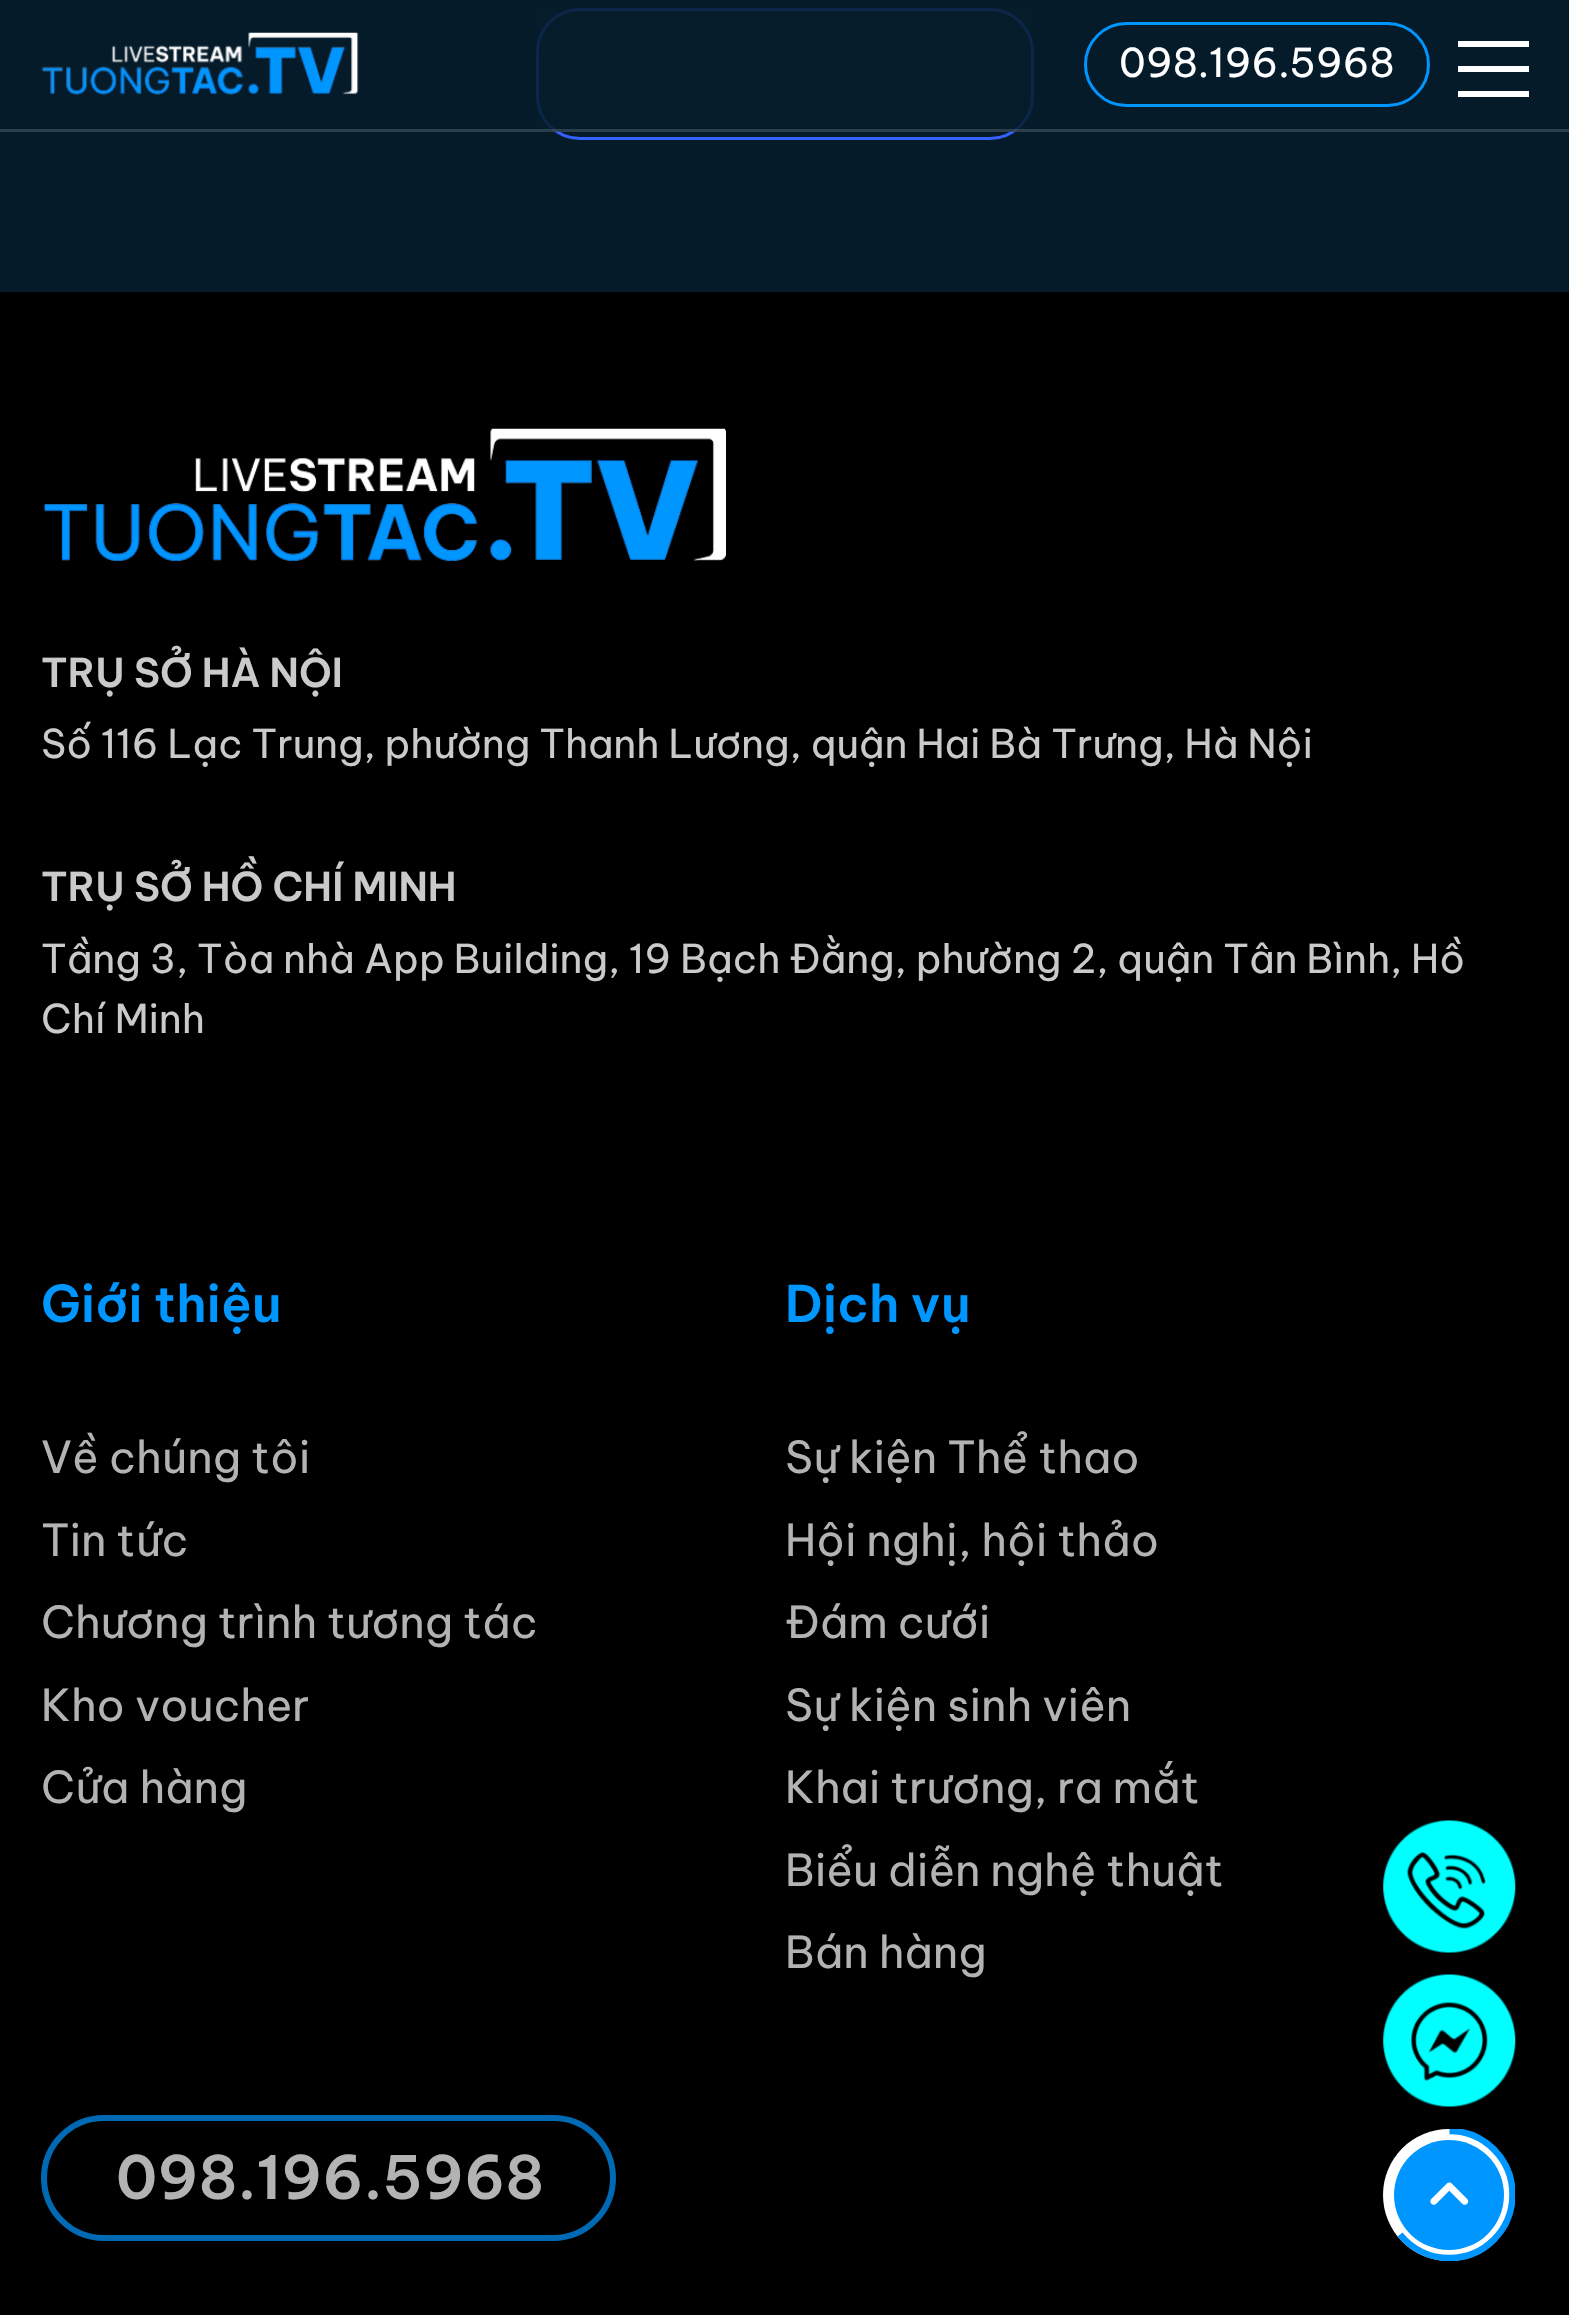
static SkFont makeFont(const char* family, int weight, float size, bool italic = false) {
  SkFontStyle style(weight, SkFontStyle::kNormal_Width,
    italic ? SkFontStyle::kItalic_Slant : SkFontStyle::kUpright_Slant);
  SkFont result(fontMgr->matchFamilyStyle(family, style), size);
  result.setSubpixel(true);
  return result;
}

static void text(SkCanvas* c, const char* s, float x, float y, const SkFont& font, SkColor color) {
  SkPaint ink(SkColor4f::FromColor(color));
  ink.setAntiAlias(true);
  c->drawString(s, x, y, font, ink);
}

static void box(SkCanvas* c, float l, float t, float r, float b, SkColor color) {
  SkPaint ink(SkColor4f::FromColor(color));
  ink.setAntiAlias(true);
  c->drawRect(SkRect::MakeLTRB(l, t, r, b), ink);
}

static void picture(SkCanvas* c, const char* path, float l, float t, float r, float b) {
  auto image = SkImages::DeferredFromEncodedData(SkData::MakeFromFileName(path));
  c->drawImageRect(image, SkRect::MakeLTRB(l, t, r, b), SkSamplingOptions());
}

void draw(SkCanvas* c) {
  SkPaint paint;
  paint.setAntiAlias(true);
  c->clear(0xff051b2a);
  paint.setStyle(SkPaint::kStroke_Style);
  paint.setStrokeWidth(3);
  paint.setColor(0xff3461ff);
  c->drawRoundRect(SkRect::MakeLTRB(537.5f, 9.5f, 1032.5f, 138.5f), 42.5f, 42.5f, paint);
  box(c, 536, 8, 1034, 132, 0xd9051b2a);
  box(c, 0, 129, 1569, 132, 0x26ffffff);
  picture(c, "img_01.png", 42, 32, 359, 95);
  paint.setColor(0xff0096ff);
  c->drawRoundRect(SkRect::MakeLTRB(1085.5f, 23.5f, 1428.5f, 105.5f), 41, 41, paint);
  SkFont face1 = makeFont("Be Vietnam Pro", 400, 39.6f);
  text(c, "098.196.5968", 1119, 77, face1, 0xffffffff);
  box(c, 1458, 41, 1529, 47, 0xffffffff);
  box(c, 1458, 66, 1529, 72, 0xffffffff);
  box(c, 1458, 91, 1529, 97, 0xffffffff);
  box(c, 0, 292, 1569, 2315, 0xff000000);
  picture(c, "img_02.png", 44, 428, 726, 561);
  SkFont face2 = makeFont("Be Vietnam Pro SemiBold", 600, 39.6f);
  text(c, "TRỤ SỞ HÀ NỘI", 41, 687, face2, 0xffcacaca);
  text(c, "Số 116 Lạc Trung, phường Thanh Lương, quận Hai Bà Trưng, Hà Nội", 41, 758, face1, 0xffcacaca);
  text(c, "TRỤ SỞ HỒ CHÍ MINH", 41, 901, face2, 0xffcacaca);
  text(c, "Tầng 3, Tòa nhà App Building, 19 Bạch Đằng, phường 2, quận Tân Bình, Hồ", 41, 973, face1, 0xffcacaca);
  text(c, "Chí Minh", 41, 1033, face1, 0xffcacaca);
  SkFont face3 = makeFont("Be Vietnam Pro SemiBold", 600, 50.5f);
  text(c, "Giới thiệu", 41, 1322, face3, 0xff0096ff);
  SkFont face4 = makeFont("Be Vietnam Pro", 400, 44);
  text(c, "Về chúng tôi", 41, 1473, face4, 0xffb3b3b3);
  text(c, "Tin tức", 41, 1556, face4, 0xffb3b3b3);
  text(c, "Chương trình tương tác", 41, 1638, face4, 0xffb3b3b3);
  text(c, "Kho voucher", 41, 1721, face4, 0xffb3b3b3);
  text(c, "Cửa hàng", 41, 1803, face4, 0xffb3b3b3);
  text(c, "Dịch vụ", 785, 1322, face3, 0xff0096ff);
  text(c, "Sự kiện Thể thao", 785, 1473, face4, 0xffb3b3b3);
  text(c, "Hội nghị, hội thảo", 785, 1556, face4, 0xffb3b3b3);
  text(c, "Đám cưới", 785, 1638, face4, 0xffb3b3b3);
  text(c, "Sự kiện sinh viên", 785, 1721, face4, 0xffb3b3b3);
  text(c, "Khai trương, ra mắt", 785, 1803, face4, 0xffb3b3b3);
  text(c, "Biểu diễn nghệ thuật", 785, 1886, face4, 0xffb3b3b3);
  text(c, "Bán hàng", 785, 1968, face4, 0xffb3b3b3);
  paint.setStrokeWidth(6);
  paint.setColor(0xff0069b3);
  c->drawRoundRect(SkRect::MakeLTRB(44, 2118, 613, 2238), 60, 60, paint);
  SkFont face5 = makeFont("Be Vietnam Pro SemiBold", 600, 59.5f);
  text(c, "098.196.5968", 116, 2199, face5, 0xffb3b3b3);
  picture(c, "img_03.png", 1383, 1820, 1516, 1953);
  picture(c, "img_04.png", 1383, 1974, 1516, 2107);
  paint.setStyle(SkPaint::kFill_Style);
  paint.setColor(0xffffffff);
  c->drawCircle(1449, 2195, 66, paint);
  c->save();
  c->clipRect(SkRect::MakeLTRB(1383, 2129, 1515, 2261));
  paint.setStyle(SkPaint::kStroke_Style);
  paint.setStrokeWidth(6.5f);
  paint.setColor(0xff0096ff);
  c->drawPath(SkPathBuilder().moveTo(1449.5f, 2131).cubicTo(1484.5f, 2131, 1512.5f, 2159.5f, 1512.5f, 2194.5f).cubicTo(1512.5f, 2229.5f, 1484.5f, 2258, 1449.5f, 2258).cubicTo(1429.5f, 2258, 1412, 2249, 1400, 2234.5f).detach(), paint);
  c->restore();
  paint.setStyle(SkPaint::kFill_Style);
  c->drawCircle(1449, 2195, 55, paint);
  picture(c, "img_05.png", 1430, 2182, 1469, 2205);
}
